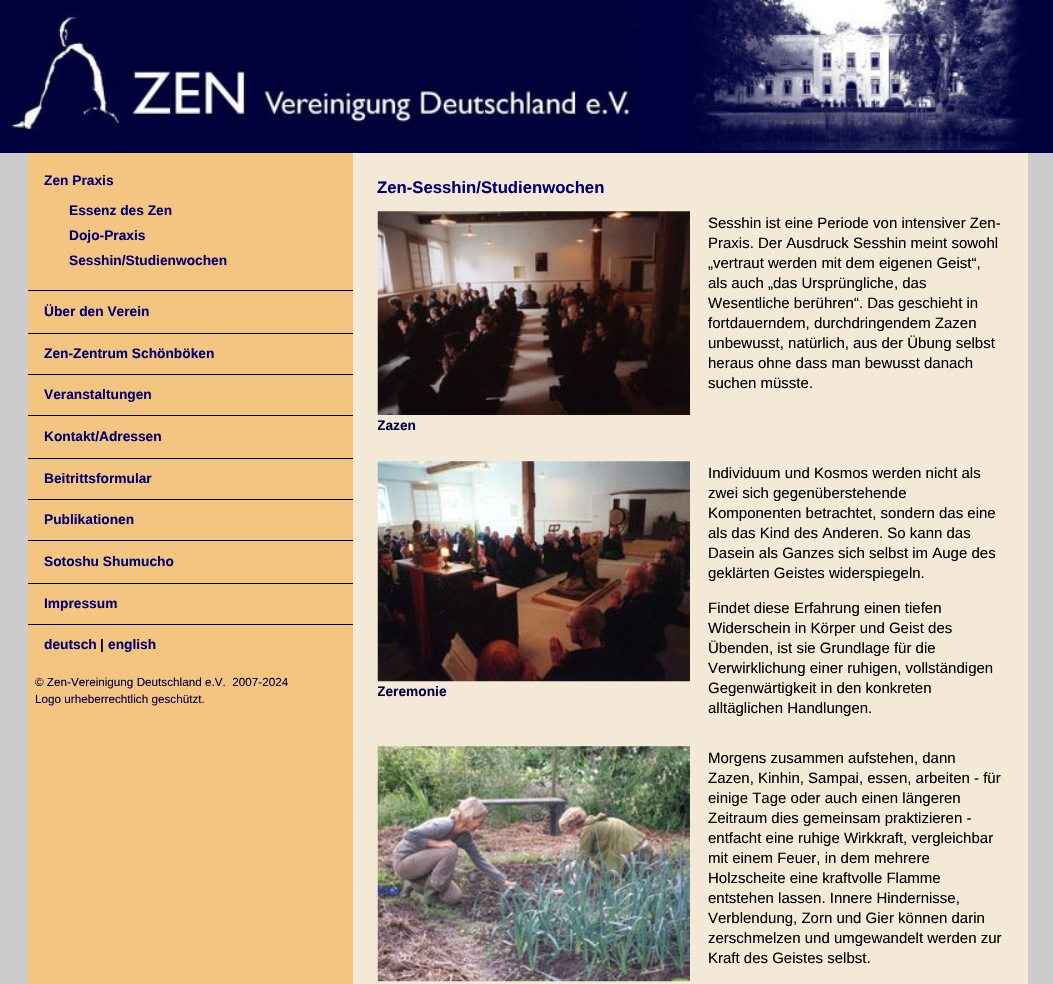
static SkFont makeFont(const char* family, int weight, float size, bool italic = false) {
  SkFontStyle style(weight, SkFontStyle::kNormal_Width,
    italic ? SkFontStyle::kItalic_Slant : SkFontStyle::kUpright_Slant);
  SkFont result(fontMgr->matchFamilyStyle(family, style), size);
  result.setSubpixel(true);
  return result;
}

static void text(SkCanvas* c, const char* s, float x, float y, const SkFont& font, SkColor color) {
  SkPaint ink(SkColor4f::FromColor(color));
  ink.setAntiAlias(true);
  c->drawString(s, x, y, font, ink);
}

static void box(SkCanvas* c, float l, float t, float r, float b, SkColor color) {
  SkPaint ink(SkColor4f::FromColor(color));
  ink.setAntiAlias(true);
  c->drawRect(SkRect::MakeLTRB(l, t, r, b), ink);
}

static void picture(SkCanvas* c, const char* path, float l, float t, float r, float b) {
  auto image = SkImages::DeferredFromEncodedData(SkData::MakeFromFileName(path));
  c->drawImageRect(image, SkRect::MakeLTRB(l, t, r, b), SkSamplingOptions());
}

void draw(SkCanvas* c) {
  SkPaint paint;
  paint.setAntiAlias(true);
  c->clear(0xffcccccc);
  box(c, 0, 0, 1053, 153, 0xff000040);
  picture(c, "img_01.png", 0, 0, 119, 146);
  picture(c, "img_02.png", 122, 0, 640, 147);
  picture(c, "img_03.png", 690, 0, 1053, 150);
  box(c, 28, 153, 353, 984, 0xfff4c481);
  SkFont face1 = makeFont("Liberation Sans", 700, 13.75f);
  text(c, "Zen Praxis", 44, 185, face1, 0xff000070);
  text(c, "Essenz des Zen", 69, 215, face1, 0xff000070);
  text(c, "Dojo-Praxis", 69, 240, face1, 0xff000070);
  text(c, "Sesshin/Studienwochen", 69, 265, face1, 0xff000070);
  box(c, 28, 290, 353, 291, 0xff000000);
  text(c, "Über den Verein", 44, 316, face1, 0xff000070);
  box(c, 28, 333, 353, 334, 0xff000000);
  text(c, "Zen-Zentrum Schönböken", 44, 358, face1, 0xff000070);
  box(c, 28, 374, 353, 375, 0xff000000);
  text(c, "Veranstaltungen", 44, 399, face1, 0xff000070);
  box(c, 28, 415, 353, 416, 0xff000000);
  text(c, "Kontakt/Adressen", 44, 441, face1, 0xff000070);
  box(c, 28, 458, 353, 459, 0xff000000);
  text(c, "Beitrittsformular", 44, 483, face1, 0xff000070);
  box(c, 28, 499, 353, 500, 0xff000000);
  text(c, "Publikationen", 44, 524, face1, 0xff000070);
  box(c, 28, 540, 353, 541, 0xff000000);
  text(c, "Sotoshu Shumucho", 44, 566, face1, 0xff000070);
  box(c, 28, 583, 353, 584, 0xff000000);
  text(c, "Impressum", 44, 608, face1, 0xff000070);
  box(c, 28, 624, 353, 625, 0xff000000);
  text(c, "deutsch", 44, 649, face1, 0xff000070);
  text(c, "|", 100, 649, face1, 0xff000040);
  text(c, "english", 108, 649, face1, 0xff000070);
  box(c, 353, 153, 1028, 984, 0xfff4e9d7);
  SkFont face2 = makeFont("Liberation Sans", 700, 16.7f);
  text(c, "Zen-Sesshin/Studienwochen", 377, 193, face2, 0xff000070);
  SkFont face3 = makeFont("Liberation Sans", 400, 15);
  text(c, "Sesshin ist eine Periode von intensiver Zen-", 708, 228, face3, 0xff000000);
  text(c, "Praxis. Der Ausdruck Sesshin meint sowohl", 708, 248, face3, 0xff000000);
  text(c, "„vertraut werden mit dem eigenen Geist“,", 708, 268, face3, 0xff000000);
  text(c, "als auch „das Ursprüngliche, das", 708, 288, face3, 0xff000000);
  text(c, "Wesentliche berühren“. Das geschieht in", 708, 308, face3, 0xff000000);
  text(c, "fortdauerndem, durchdringendem Zazen", 708, 328, face3, 0xff000000);
  text(c, "unbewusst, natürlich, aus der Übung selbst", 708, 348, face3, 0xff000000);
  text(c, "heraus ohne dass man bewusst danach", 708, 368, face3, 0xff000000);
  text(c, "suchen müsste.", 708, 388, face3, 0xff000000);
  picture(c, "img_04.png", 377, 211, 690, 415);
  c->save();
  c->clipRect(SkRect::MakeLTRB(378, 198, 1003, 448));
  text(c, "Zazen", 377, 430, face1, 0xff000040);
  c->restore();
  picture(c, "img_05.png", 377, 461, 690, 682);
  c->save();
  c->clipRect(SkRect::MakeLTRB(378, 448, 1003, 733));
  text(c, "Zeremonie", 377, 696, face1, 0xff000040);
  c->restore();
  text(c, "Individuum und Kosmos werden nicht als", 708, 478, face3, 0xff000000);
  text(c, "zwei sich gegenüberstehende", 708, 498, face3, 0xff000000);
  text(c, "Komponenten betrachtet, sondern das eine", 708, 518, face3, 0xff000000);
  text(c, "als das Kind des Anderen. So kann das", 708, 538, face3, 0xff000000);
  text(c, "Dasein als Ganzes sich selbst im Auge des", 708, 558, face3, 0xff000000);
  text(c, "geklärten Geistes widerspiegeln.", 708, 578, face3, 0xff000000);
  text(c, "Findet diese Erfahrung einen tiefen", 708, 613, face3, 0xff000000);
  text(c, "Widerschein in Körper und Geist des", 708, 633, face3, 0xff000000);
  text(c, "Übenden, ist sie Grundlage für die", 708, 653, face3, 0xff000000);
  text(c, "Verwirklichung einer ruhigen, vollständigen", 708, 673, face3, 0xff000000);
  text(c, "Gegenwärtigkeit in den konkreten", 708, 693, face3, 0xff000000);
  text(c, "alltäglichen Handlungen.", 708, 713, face3, 0xff000000);
  picture(c, "img_06.png", 377, 746, 690, 982);
  text(c, "Morgens zusammen aufstehen, dann", 708, 763, face3, 0xff000000);
  text(c, "Zazen, Kinhin, Sampai, essen, arbeiten - für", 708, 783, face3, 0xff000000);
  text(c, "einige Tage oder auch einen längeren", 708, 803, face3, 0xff000000);
  text(c, "Zeitraum dies gemeinsam praktizieren -", 708, 823, face3, 0xff000000);
  text(c, "entfacht eine ruhige Wirkkraft, vergleichbar", 708, 843, face3, 0xff000000);
  text(c, "mit einem Feuer, in dem mehrere", 708, 863, face3, 0xff000000);
  text(c, "Holzscheite eine kraftvolle Flamme", 708, 883, face3, 0xff000000);
  text(c, "entstehen lassen. Innere Hindernisse,", 708, 903, face3, 0xff000000);
  text(c, "Verblendung, Zorn und Gier können darin", 708, 923, face3, 0xff000000);
  text(c, "zerschmelzen und umgewandelt werden zur", 708, 943, face3, 0xff000000);
  text(c, "Kraft des Geistes selbst.", 708, 963, face3, 0xff000000);
  SkFont face4 = makeFont("Liberation Sans", 400, 11.7f);
  text(c, "© Zen-Vereinigung Deutschland e.V.  2007-2024", 35, 686, face4, 0xff000040);
  text(c, "Logo urheberrechtlich geschützt.", 35, 703, face4, 0xff000040);
}
